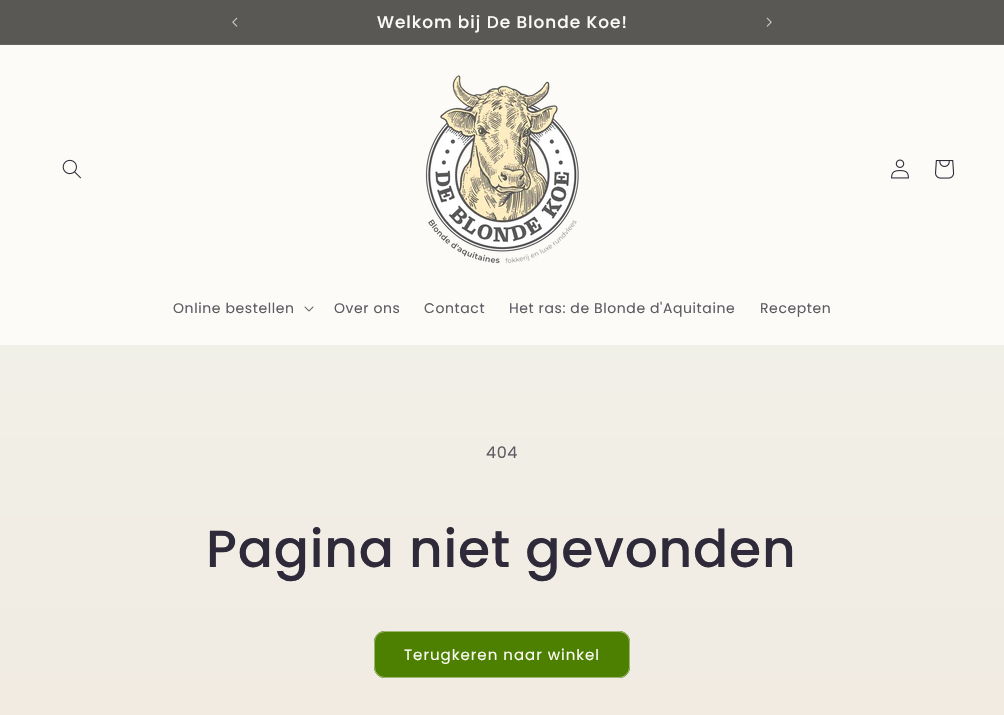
static SkFont makeFont(const char* family, int weight, float size, bool italic = false) {
  SkFontStyle style(weight, SkFontStyle::kNormal_Width,
    italic ? SkFontStyle::kItalic_Slant : SkFontStyle::kUpright_Slant);
  SkFont result(fontMgr->matchFamilyStyle(family, style), size);
  result.setSubpixel(true);
  return result;
}

static void spacedText(SkCanvas* c, const char* s, float x, float y, const SkFont& font, const SkPaint& ink, float letter, float word) {
  std::vector<SkGlyphID> glyphs(font.countText(s, strlen(s), SkTextEncoding::kUTF8));
  std::vector<float> xs(glyphs.size());
  font.textToGlyphs(s, strlen(s), SkTextEncoding::kUTF8, glyphs);
  font.getXPos(glyphs, xs, x);
  float extra = 0;
  for (size_t i = 0; i < glyphs.size(); i++) {
    xs[i] += extra;
    extra += letter + word * (glyphs[i] == font.unicharToGlyph(' '));
  }
  c->drawTextBlob(SkTextBlob::MakeFromPosHGlyphs(glyphs, xs, y, font), 0, 0, ink);
}

static void box(SkCanvas* c, float l, float t, float r, float b, SkColor color) {
  SkPaint ink(SkColor4f::FromColor(color));
  ink.setAntiAlias(true);
  c->drawRect(SkRect::MakeLTRB(l, t, r, b), ink);
}

static void roundBox(SkCanvas* c, float l, float t, float r, float b, float radius, SkColor color) {
  SkPaint ink(SkColor4f::FromColor(color));
  ink.setAntiAlias(true);
  c->drawRoundRect(SkRect::MakeLTRB(l, t, r, b), radius, radius, ink);
}

static void picture(SkCanvas* c, const char* path, float l, float t, float r, float b) {
  auto image = SkImages::DeferredFromEncodedData(SkData::MakeFromFileName(path));
  c->drawImageRect(image, SkRect::MakeLTRB(l, t, r, b), SkSamplingOptions());
}

void draw(SkCanvas* c) {
  SkPaint paint;
  paint.setAntiAlias(true);
  c->clear(0xffffffff);
  {
    const SkColor colors[] = {0xfff0f4ec, 0xfff1ebe2};
    const float stops[] = {0, 1};
    const SkPoint ends[] = {{502, 0}, {502, 715}};
    paint.setShader(SkGradientShader::MakeLinear(ends, colors, stops, 2, SkTileMode::kClamp));
    paint.setAlpha(255);
  }
  c->drawRect(SkRect::MakeLTRB(0, 345, 1004, 715), paint);
  box(c, 0, 0, 1004, 44, 0xff595854);
  box(c, 0, 44, 1004, 45, 0xff666561);
  picture(c, "img_01.png", 232, 17, 238, 27);
  SkFont face1 = makeFont("Poppins", 500, 16.9f);
  paint.setShader(nullptr);
  paint.setColor(0xfffdfbf7);
  spacedText(c, "Welkom bij De Blonde Koe!", 377, 28, face1, paint, 1, 0);
  picture(c, "img_02.png", 766, 17, 772, 27);
  box(c, 0, 45, 1004, 345, 0xfffdfbf7);
  picture(c, "img_03.png", 62, 159, 81, 179);
  picture(c, "img_04.png", 425, 75, 579, 264);
  picture(c, "img_05.png", 891, 159, 909, 179);
  picture(c, "img_06.png", 935, 160, 955, 179);
  SkFont face2 = makeFont("Poppins", 400, 14);
  paint.setColor(0xff5f5b64);
  spacedText(c, "Online bestellen", 173, 313, face2, paint, 0.6f, 0);
  picture(c, "img_07.png", 304, 306, 314, 312);
  spacedText(c, "Over ons", 334, 313, face2, paint, 0.6f, 0);
  spacedText(c, "Contact", 424, 313, face2, paint, 0.6f, 0);
  spacedText(c, "Het ras: de Blonde d'Aquitaine", 509, 313, face2, paint, 0.6f, 0);
  spacedText(c, "Recepten", 760, 313, face2, paint, 0.6f, 0);
  SkFont face3 = makeFont("Poppins", 400, 16);
  spacedText(c, "404", 486, 458, face3, paint, 0.6f, 0);
  SkFont face4 = makeFont("Poppins", 500, 52);
  paint.setColor(0xff2e2a39);
  spacedText(c, "Pagina niet gevonden", 206, 567, face4, paint, 0.75f, 0);
  roundBox(c, 374, 631, 630, 678, 11, 0xff4d8000);
  paint.setStyle(SkPaint::kStroke_Style);
  paint.setStrokeWidth(1);
  paint.setColor(0xff4d8000);
  c->drawRoundRect(SkRect::MakeLTRB(374.5f, 631.5f, 629.5f, 677.5f), 10.5f, 10.5f, paint);
  paint.setColor(0x73fdfbf7);
  c->drawRoundRect(SkRect::MakeLTRB(374.5f, 631.5f, 629.5f, 677.5f), 10.5f, 10.5f, paint);
  SkFont face5 = makeFont("Poppins", 400, 15);
  paint.setStyle(SkPaint::kFill_Style);
  paint.setColor(0xfffdfbf7);
  spacedText(c, "Terugkeren naar winkel", 404, 660, face5, paint, 1, 0);
}
